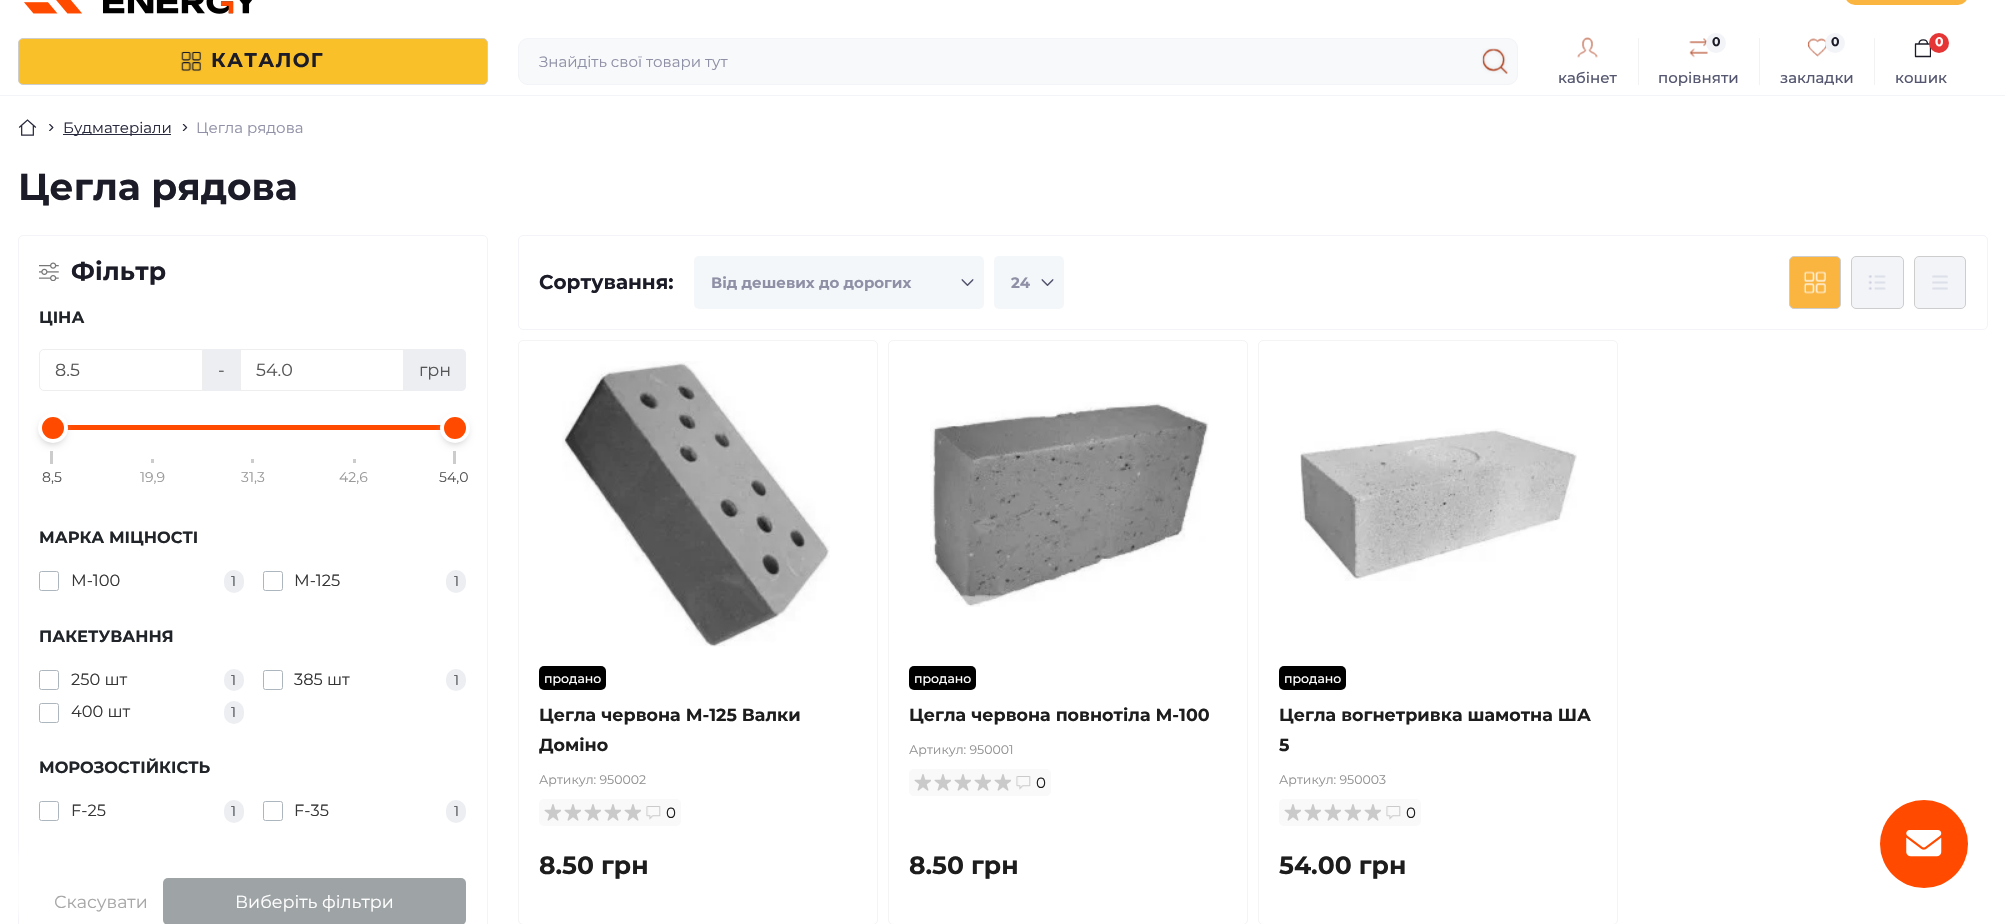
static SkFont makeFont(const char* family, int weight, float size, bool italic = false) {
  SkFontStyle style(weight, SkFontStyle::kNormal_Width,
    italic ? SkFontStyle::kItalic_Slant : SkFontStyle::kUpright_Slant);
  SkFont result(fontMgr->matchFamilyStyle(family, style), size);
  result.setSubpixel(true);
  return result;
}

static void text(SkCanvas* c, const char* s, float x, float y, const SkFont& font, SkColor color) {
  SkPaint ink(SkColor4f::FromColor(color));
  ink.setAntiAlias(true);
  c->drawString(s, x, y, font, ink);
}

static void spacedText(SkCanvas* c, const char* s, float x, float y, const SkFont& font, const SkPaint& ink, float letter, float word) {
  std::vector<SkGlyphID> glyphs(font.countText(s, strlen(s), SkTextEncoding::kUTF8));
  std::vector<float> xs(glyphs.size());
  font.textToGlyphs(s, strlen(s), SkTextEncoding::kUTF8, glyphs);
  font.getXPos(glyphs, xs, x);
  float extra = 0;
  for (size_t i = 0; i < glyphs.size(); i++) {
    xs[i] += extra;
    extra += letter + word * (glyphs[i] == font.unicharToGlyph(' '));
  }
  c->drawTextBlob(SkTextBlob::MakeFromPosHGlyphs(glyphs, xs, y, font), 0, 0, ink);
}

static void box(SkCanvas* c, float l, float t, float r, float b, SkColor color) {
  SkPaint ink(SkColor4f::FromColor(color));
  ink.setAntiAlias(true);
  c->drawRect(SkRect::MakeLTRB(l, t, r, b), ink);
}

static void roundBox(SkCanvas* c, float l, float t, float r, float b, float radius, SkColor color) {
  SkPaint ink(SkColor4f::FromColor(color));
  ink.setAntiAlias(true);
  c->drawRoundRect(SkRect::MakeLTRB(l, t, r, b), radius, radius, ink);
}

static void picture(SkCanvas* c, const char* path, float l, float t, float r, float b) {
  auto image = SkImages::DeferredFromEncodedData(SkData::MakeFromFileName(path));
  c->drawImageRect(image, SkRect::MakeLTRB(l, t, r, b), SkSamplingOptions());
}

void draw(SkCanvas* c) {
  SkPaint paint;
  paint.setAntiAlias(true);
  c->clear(0xffffffff);
  roundBox(c, 1845, -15, 1968, 5, 15, 0xfffab541);
  picture(c, "img_01.png", 24, 0, 252, 14);
  box(c, 0, 95, 2005, 96, 0xfff2f4f8);
  paint.setColor(0xfffac02a);
  c->drawRoundRect(SkRect::MakeLTRB(18.5f, 38.5f, 487.5f, 84.5f), 4.5f, 4.5f, paint);
  paint.setStyle(SkPaint::kStroke_Style);
  paint.setStrokeWidth(1);
  paint.setColor(0xffcdcdcd);
  c->drawRoundRect(SkRect::MakeLTRB(18.5f, 38.5f, 487.5f, 84.5f), 4.5f, 4.5f, paint);
  picture(c, "img_02.png", 180, 50, 202, 72);
  SkFont face1 = makeFont("Montserrat", 700, 20);
  paint.setStyle(SkPaint::kFill_Style);
  paint.setColor(0xff1c1c28);
  spacedText(c, "КАТАЛОГ", 211, 67, face1, paint, 1.25f, 0);
  paint.setColor(0xfff8f9fa);
  c->drawRoundRect(SkRect::MakeLTRB(518.5f, 38.5f, 1517.5f, 84.5f), 9.5f, 9.5f, paint);
  paint.setStyle(SkPaint::kStroke_Style);
  paint.setColor(0xfff2f4f8);
  c->drawRoundRect(SkRect::MakeLTRB(518.5f, 38.5f, 1517.5f, 84.5f), 9.5f, 9.5f, paint);
  SkFont face2 = makeFont("Montserrat", 400, 15);
  text(c, "Знайдіть свої товари тут", 539, 67, face2, 0xff8f90a6);
  picture(c, "img_03.png", 1481, 48, 1508, 74);
  picture(c, "img_04.png", 1577, 37, 1598, 58);
  SkFont face3 = makeFont("Montserrat", 500, 15);
  text(c, "кабінет", 1558, 83, face3, 0xff555770);
  box(c, 1638, 38, 1639, 85, 0xfff2f2f5);
  picture(c, "img_05.png", 1689, 38, 1708, 58);
  paint.setStyle(SkPaint::kFill_Style);
  c->drawCircle(1716, 43, 10, paint);
  SkFont face4 = makeFont("Montserrat", 700, 12.5f);
  text(c, "0", 1712, 46, face4, 0xff1c1c28);
  text(c, "порівняти", 1658, 83, face3, 0xff555770);
  box(c, 1759, 38, 1760, 85, 0xfff2f2f5);
  picture(c, "img_06.png", 1807, 38, 1827, 57);
  c->drawCircle(1835, 43, 10, paint);
  text(c, "0", 1831, 46, face4, 0xff1c1c28);
  text(c, "закладки", 1780, 83, face3, 0xff555770);
  box(c, 1874, 38, 1875, 85, 0xfff2f2f5);
  c->save();
  c->clipRect(SkRect::MakeLTRB(1911, 38, 1931, 58));
  paint.setStyle(SkPaint::kStroke_Style);
  paint.setStrokeWidth(1.3f);
  paint.setStrokeCap(SkPaint::kRound_Cap);
  paint.setStrokeJoin(SkPaint::kRound_Join);
  paint.setColor(0xff1c1c28);
  c->drawPath(SkPathBuilder().moveTo(1915.5f, 44).lineTo(1930.5f, 44).lineTo(1930.5f, 56.5f).lineTo(1915.5f, 56.5f).close().moveTo(1919, 44).cubicTo(1919, 38.5f, 1927.5f, 38.5f, 1927.5f, 44).detach(), paint);
  c->restore();
  paint.setStyle(SkPaint::kFill_Style);
  paint.setColor(0xffe53535);
  c->drawCircle(1939, 43, 10, paint);
  text(c, "0", 1935, 46, face4, 0xffffffff);
  text(c, "кошик", 1895, 83, face3, 0xff555770);
  picture(c, "img_07.png", 18, 119, 37, 136);
  picture(c, "img_08.png", 49, 124, 54, 131);
  box(c, 63, 134, 171, 135, 0xff28293d);
  text(c, "Будматеріали", 63, 133, face2, 0xff28293d);
  picture(c, "img_09.png", 182, 124, 188, 131);
  text(c, "Цегла рядова", 196, 133, face2, 0xff8f90a6);
  SkFont face5 = makeFont("Montserrat", 700, 37.5f);
  text(c, "Цегла рядова", 18, 200, face5, 0xff1c1c28);
  paint.setStyle(SkPaint::kStroke_Style);
  paint.setStrokeWidth(1);
  paint.setStrokeCap(SkPaint::kButt_Cap);
  paint.setStrokeJoin(SkPaint::kMiter_Join);
  paint.setColor(0xfff2f4f8);
  c->drawRoundRect(SkRect::MakeLTRB(18.5f, 235.5f, 487.5f, 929.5f), 4.5f, 4.5f, paint);
  picture(c, "img_10.png", 39, 262, 59, 281);
  SkFont face6 = makeFont("Montserrat", 700, 25);
  paint.setStyle(SkPaint::kFill_Style);
  paint.setColor(0xff1c1c28);
  spacedText(c, "Фільтр", 71, 280, face6, paint, 0.25f, 0);
  SkFont face7 = makeFont("Montserrat", 700, 16.25f);
  text(c, "ЦІНА", 39, 323, face7, 0xff212529);
  paint.setStyle(SkPaint::kStroke_Style);
  paint.setColor(0xffeeeeee);
  c->drawPath(SkPathBuilder().moveTo(44, 349.5f).lineTo(202.5f, 349.5f).lineTo(202.5f, 390.5f).lineTo(44, 390.5f).cubicTo(41.5f, 390.5f, 39.5f, 388.5f, 39.5f, 386).lineTo(39.5f, 354).cubicTo(39.5f, 351.5f, 41.5f, 349.5f, 44, 349.5f).close().detach(), paint);
  SkFont face8 = makeFont("Montserrat", 400, 17.5f);
  text(c, "8.5", 55, 376, face8, 0xff555555);
  box(c, 203, 349, 240, 391, 0xffeceef2);
  text(c, "-", 218, 376, face8, 0xff555555);
  c->drawRect(SkRect::MakeLTRB(240.5f, 349.5f, 403.5f, 390.5f), paint);
  text(c, "54.0", 256, 376, face8, 0xff555555);
  paint.setStyle(SkPaint::kFill_Style);
  paint.setColor(0xffeceef2);
  c->drawPath(SkPathBuilder().moveTo(404, 349).lineTo(461, 349).cubicTo(464, 349, 466, 351, 466, 354).lineTo(466, 386).cubicTo(466, 389, 464, 391, 461, 391).lineTo(404, 391).close().detach(), paint);
  text(c, "грн", 419, 376, face8, 0xff555555);
  box(c, 67, 425, 441, 430, 0xffff4a00);
  box(c, 50, 451, 53, 464, 0xffcccccc);
  paint.setColor(0xffbbbbbb);
  paint.setMaskFilter(SkMaskFilter::MakeBlur(kNormal_SkBlurStyle, 4));
  c->drawRoundRect(SkRect::MakeLTRB(41, 420, 64, 443), 11.5f, 11.5f, paint);
  paint.setMaskFilter(nullptr);
  paint.setColor(0xffff4a00);
  c->drawCircle(53, 428, 13, paint);
  paint.setStyle(SkPaint::kStroke_Style);
  paint.setStrokeWidth(4);
  paint.setColor(0xffffffff);
  c->drawCircle(53, 428, 13, paint);
  box(c, 453, 451, 456, 464, 0xffcccccc);
  paint.setStyle(SkPaint::kFill_Style);
  paint.setColor(0xffbbbbbb);
  paint.setMaskFilter(SkMaskFilter::MakeBlur(kNormal_SkBlurStyle, 4));
  c->drawRoundRect(SkRect::MakeLTRB(444, 420, 466, 443), 11, 11, paint);
  paint.setMaskFilter(nullptr);
  paint.setColor(0xffff4a00);
  c->drawCircle(455, 428, 13, paint);
  paint.setStyle(SkPaint::kStroke_Style);
  paint.setColor(0xffffffff);
  c->drawCircle(455, 428, 13, paint);
  box(c, 151, 459, 154, 463, 0xffcccccc);
  box(c, 251, 459, 254, 463, 0xffcccccc);
  box(c, 353, 459, 356, 463, 0xffcccccc);
  SkFont face9 = makeFont("Montserrat", 400, 14);
  text(c, "8,5", 42, 482, face9, 0xff555555);
  text(c, "19,9", 140, 482, face9, 0xff999999);
  text(c, "31,3", 241, 482, face9, 0xff999999);
  text(c, "42,6", 339, 482, face9, 0xff999999);
  text(c, "54,0", 439, 482, face9, 0xff555555);
  text(c, "МАРКА МІЦНОСТІ", 39, 543, face7, 0xff212529);
  paint.setStrokeWidth(1);
  paint.setColor(0xffadb5bd);
  c->drawRoundRect(SkRect::MakeLTRB(39.5f, 571.5f, 58.5f, 590.5f), 2, 2, paint);
  SkFont face10 = makeFont("Montserrat", 400, 16.25f);
  text(c, "М-100", 71, 586, face10, 0xff353535);
  roundBox(c, 224, 570, 244, 593, 10, 0xffeceef2);
  text(c, "1", 231, 586, face9, 0xff46494e);
  c->drawRoundRect(SkRect::MakeLTRB(263.5f, 571.5f, 282.5f, 590.5f), 2, 2, paint);
  text(c, "М-125", 294, 586, face10, 0xff353535);
  roundBox(c, 446, 570, 466, 593, 10, 0xffeceef2);
  text(c, "1", 454, 586, face9, 0xff46494e);
  text(c, "ПАКЕТУВАННЯ", 39, 642, face7, 0xff212529);
  c->drawRoundRect(SkRect::MakeLTRB(39.5f, 670.5f, 58.5f, 689.5f), 2, 2, paint);
  text(c, "250 шт", 71, 685, face10, 0xff353535);
  roundBox(c, 224, 669, 244, 691, 10, 0xffeceef2);
  text(c, "1", 231, 685, face9, 0xff46494e);
  c->drawRoundRect(SkRect::MakeLTRB(263.5f, 670.5f, 282.5f, 689.5f), 2, 2, paint);
  text(c, "385 шт", 294, 685, face10, 0xff353535);
  roundBox(c, 446, 669, 466, 691, 10, 0xffeceef2);
  text(c, "1", 454, 685, face9, 0xff46494e);
  c->drawRoundRect(SkRect::MakeLTRB(39.5f, 703.5f, 58.5f, 722.5f), 2, 2, paint);
  text(c, "400 шт", 71, 717, face10, 0xff353535);
  roundBox(c, 224, 701, 244, 724, 10, 0xffeceef2);
  text(c, "1", 231, 717, face9, 0xff46494e);
  text(c, "МОРОЗОСТІЙКІСТЬ", 39, 773, face7, 0xff212529);
  c->drawRoundRect(SkRect::MakeLTRB(39.5f, 801.5f, 58.5f, 820.5f), 2, 2, paint);
  text(c, "F-25", 71, 816, face10, 0xff353535);
  roundBox(c, 224, 800, 244, 823, 10, 0xffeceef2);
  text(c, "1", 231, 816, face9, 0xff46494e);
  c->drawRoundRect(SkRect::MakeLTRB(263.5f, 801.5f, 282.5f, 820.5f), 2, 2, paint);
  text(c, "F-35", 294, 816, face10, 0xff353535);
  roundBox(c, 446, 800, 466, 823, 10, 0xffeceef2);
  text(c, "1", 454, 816, face9, 0xff46494e);
  c->save();
  c->clipPath(SkPathBuilder(SkPathFillType::kEvenOdd).moveTo(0, 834).lineTo(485, 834).lineTo(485, 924).lineTo(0, 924).close().moveTo(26, 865).lineTo(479, 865).lineTo(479, 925).lineTo(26, 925).close().detach(), true);
  paint.setStyle(SkPaint::kFill_Style);
  paint.setColor(0xffffffff);
  paint.setMaskFilter(SkMaskFilter::MakeBlur(kNormal_SkBlurStyle, 6));
  c->drawRect(SkRect::MakeLTRB(14, 853, 466, 913), paint);
  paint.setMaskFilter(nullptr);
  c->restore();
  text(c, "Скасувати", 54, 908, face8, 0xffa7a7a7);
  roundBox(c, 163, 878, 466, 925, 5, 0xff9ea3a5);
  text(c, "Виберіть фільтри", 235, 908, face8, 0xffffffff);
  paint.setStyle(SkPaint::kStroke_Style);
  paint.setColor(0xfff2f4f8);
  c->drawRoundRect(SkRect::MakeLTRB(518.5f, 235.5f, 1987.5f, 329.5f), 4.5f, 4.5f, paint);
  text(c, "Сортування:", 539, 289, face1, 0xff1c1c28);
  roundBox(c, 694, 256, 984, 309, 5, 0xfff4f7fa);
  picture(c, "img_11.png", 961, 279, 974, 286);
  SkFont face11 = makeFont("Montserrat", 700, 15);
  text(c, "Від дешевих до дорогих", 711, 288, face11, 0xff8f90a6);
  roundBox(c, 994, 256, 1064, 309, 5, 0xfff4f7fa);
  picture(c, "img_11.png", 1041, 279, 1054, 286);
  text(c, "24", 1011, 288, face11, 0xff8f90a6);
  paint.setStyle(SkPaint::kFill_Style);
  paint.setColor(0xfffab541);
  c->drawRoundRect(SkRect::MakeLTRB(1789.5f, 256.5f, 1840.5f, 308.5f), 4.5f, 4.5f, paint);
  paint.setStyle(SkPaint::kStroke_Style);
  paint.setColor(0xffcdcdcd);
  c->drawRoundRect(SkRect::MakeLTRB(1789.5f, 256.5f, 1840.5f, 308.5f), 4.5f, 4.5f, paint);
  picture(c, "img_12.png", 1803, 271, 1826, 294);
  paint.setStyle(SkPaint::kFill_Style);
  paint.setColor(0xfff2f4f8);
  c->drawRoundRect(SkRect::MakeLTRB(1851.5f, 256.5f, 1903.5f, 308.5f), 4.5f, 4.5f, paint);
  paint.setStyle(SkPaint::kStroke_Style);
  paint.setColor(0xffcdcdcd);
  c->drawRoundRect(SkRect::MakeLTRB(1851.5f, 256.5f, 1903.5f, 308.5f), 4.5f, 4.5f, paint);
  picture(c, "img_13.png", 1868, 275, 1886, 290);
  paint.setStyle(SkPaint::kFill_Style);
  paint.setColor(0xfff2f4f8);
  c->drawRoundRect(SkRect::MakeLTRB(1914.5f, 256.5f, 1965.5f, 308.5f), 4.5f, 4.5f, paint);
  paint.setStyle(SkPaint::kStroke_Style);
  paint.setColor(0xffcdcdcd);
  c->drawRoundRect(SkRect::MakeLTRB(1914.5f, 256.5f, 1965.5f, 308.5f), 4.5f, 4.5f, paint);
  picture(c, "img_14.png", 1932, 275, 1948, 290);
  paint.setColor(0xfff4f4f4);
  c->drawRoundRect(SkRect::MakeLTRB(518.5f, 340.5f, 877.5f, 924.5f), 4.5f, 4.5f, paint);
  picture(c, "img_15.png", 562, 361, 830, 647);
  roundBox(c, 539, 666, 606, 690, 5, 0xff000000);
  SkFont face12 = makeFont("Montserrat", 500, 12.5f);
  text(c, "продано", 544, 683, face12, 0xffffffff);
  SkFont face13 = makeFont("Montserrat", 700, 17.5f);
  text(c, "Цегла червона М-125 Валки", 539, 721, face13, 0xff1d1d1d);
  text(c, "Доміно", 539, 751, face13, 0xff1d1d1d);
  SkFont face14 = makeFont("Montserrat", 400, 12.5f);
  text(c, "Артикул: 950002", 539, 784, face14, 0xff919191);
  roundBox(c, 539, 799, 681, 826, 5, 0xfff9f9f9);
  picture(c, "img_16.png", 544, 804, 561, 821);
  picture(c, "img_16.png", 564, 804, 581, 821);
  picture(c, "img_16.png", 584, 804, 601, 821);
  picture(c, "img_16.png", 604, 804, 621, 821);
  picture(c, "img_16.png", 624, 804, 641, 821);
  picture(c, "img_17.png", 646, 806, 661, 820);
  text(c, "0", 666, 818, face2, 0xff1d1d1d);
  text(c, "8.50 грн", 539, 874, face6, 0xff1d1d1d);
  c->drawRoundRect(SkRect::MakeLTRB(888.5f, 340.5f, 1247.5f, 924.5f), 4.5f, 4.5f, paint);
  picture(c, "img_18.png", 930, 402, 1209, 607);
  roundBox(c, 909, 666, 976, 690, 5, 0xff000000);
  text(c, "продано", 914, 683, face12, 0xffffffff);
  text(c, "Цегла червона повнотіла М-100", 909, 721, face13, 0xff1d1d1d);
  text(c, "Артикул: 950001", 909, 754, face14, 0xff919191);
  roundBox(c, 909, 769, 1051, 796, 5, 0xfff9f9f9);
  picture(c, "img_16.png", 914, 774, 931, 791);
  picture(c, "img_16.png", 934, 774, 951, 791);
  picture(c, "img_16.png", 954, 774, 971, 791);
  picture(c, "img_16.png", 974, 774, 991, 791);
  picture(c, "img_16.png", 994, 774, 1011, 791);
  picture(c, "img_17.png", 1016, 776, 1031, 790);
  text(c, "0", 1036, 788, face2, 0xff1d1d1d);
  text(c, "8.50 грн", 909, 874, face6, 0xff1d1d1d);
  c->drawRoundRect(SkRect::MakeLTRB(1258.5f, 340.5f, 1617.5f, 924.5f), 4.5f, 4.5f, paint);
  picture(c, "img_19.png", 1300, 428, 1577, 581);
  roundBox(c, 1279, 666, 1346, 690, 5, 0xff000000);
  text(c, "продано", 1284, 683, face12, 0xffffffff);
  text(c, "Цегла вогнетривка шамотна ША", 1279, 721, face13, 0xff1d1d1d);
  text(c, "5", 1279, 751, face13, 0xff1d1d1d);
  text(c, "Артикул: 950003", 1279, 784, face14, 0xff919191);
  roundBox(c, 1279, 799, 1421, 826, 5, 0xfff9f9f9);
  picture(c, "img_16.png", 1284, 804, 1301, 821);
  picture(c, "img_16.png", 1304, 804, 1321, 821);
  picture(c, "img_16.png", 1324, 804, 1341, 821);
  picture(c, "img_16.png", 1344, 804, 1361, 821);
  picture(c, "img_16.png", 1364, 804, 1381, 821);
  picture(c, "img_17.png", 1386, 806, 1401, 820);
  text(c, "0", 1406, 818, face2, 0xff1d1d1d);
  text(c, "54.00 грн", 1279, 874, face6, 0xff1d1d1d);
  paint.setStyle(SkPaint::kFill_Style);
  paint.setColor(0xffff4a00);
  c->drawCircle(1924, 844, 44, paint);
  picture(c, "img_20.png", 1906, 830, 1942, 857);
}
